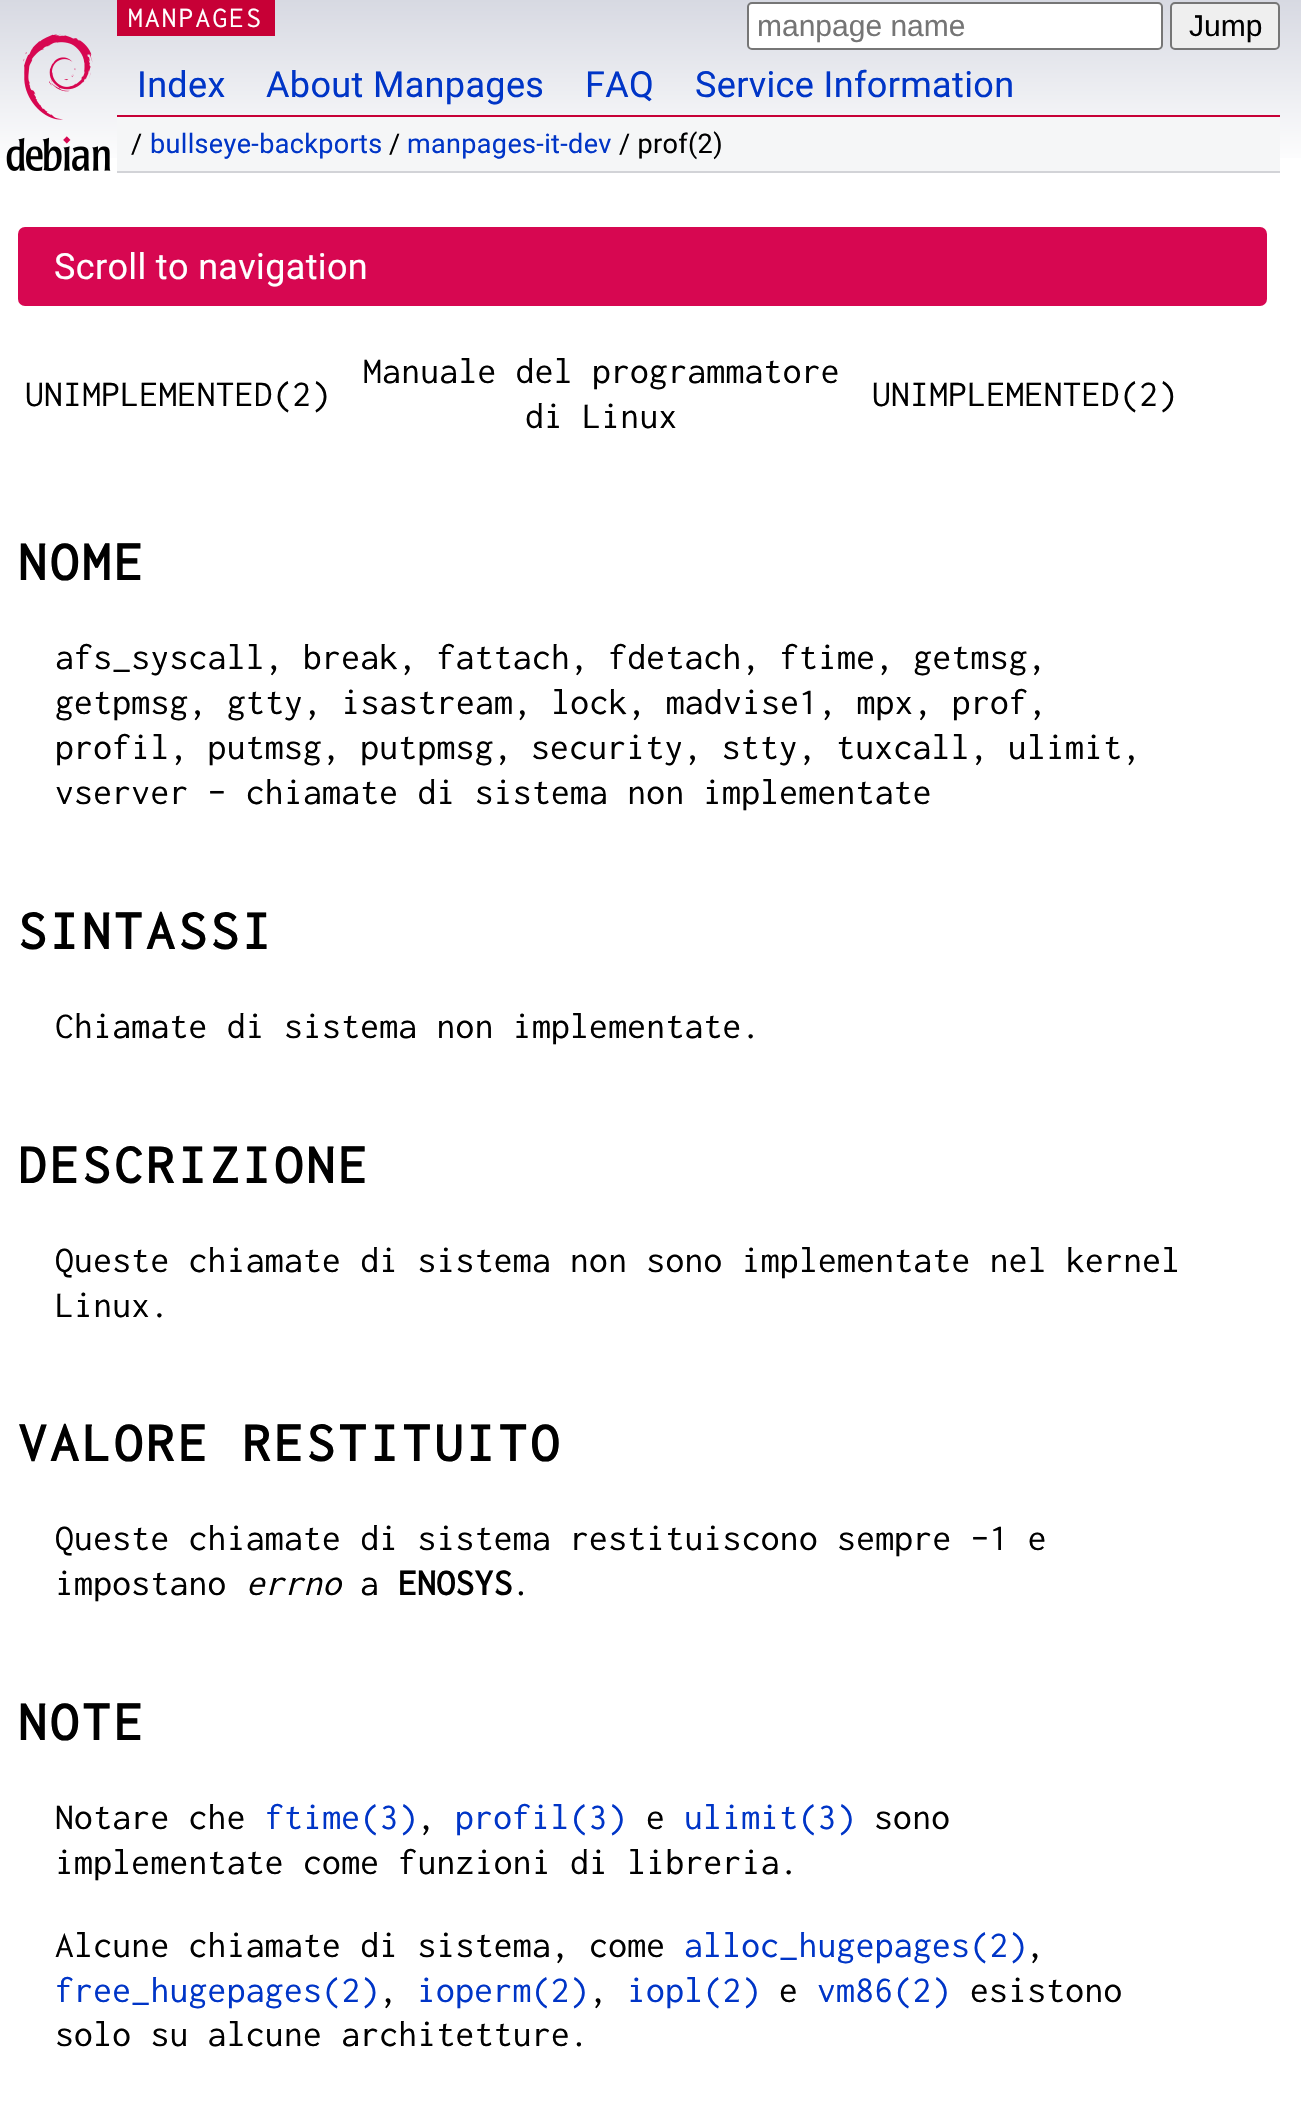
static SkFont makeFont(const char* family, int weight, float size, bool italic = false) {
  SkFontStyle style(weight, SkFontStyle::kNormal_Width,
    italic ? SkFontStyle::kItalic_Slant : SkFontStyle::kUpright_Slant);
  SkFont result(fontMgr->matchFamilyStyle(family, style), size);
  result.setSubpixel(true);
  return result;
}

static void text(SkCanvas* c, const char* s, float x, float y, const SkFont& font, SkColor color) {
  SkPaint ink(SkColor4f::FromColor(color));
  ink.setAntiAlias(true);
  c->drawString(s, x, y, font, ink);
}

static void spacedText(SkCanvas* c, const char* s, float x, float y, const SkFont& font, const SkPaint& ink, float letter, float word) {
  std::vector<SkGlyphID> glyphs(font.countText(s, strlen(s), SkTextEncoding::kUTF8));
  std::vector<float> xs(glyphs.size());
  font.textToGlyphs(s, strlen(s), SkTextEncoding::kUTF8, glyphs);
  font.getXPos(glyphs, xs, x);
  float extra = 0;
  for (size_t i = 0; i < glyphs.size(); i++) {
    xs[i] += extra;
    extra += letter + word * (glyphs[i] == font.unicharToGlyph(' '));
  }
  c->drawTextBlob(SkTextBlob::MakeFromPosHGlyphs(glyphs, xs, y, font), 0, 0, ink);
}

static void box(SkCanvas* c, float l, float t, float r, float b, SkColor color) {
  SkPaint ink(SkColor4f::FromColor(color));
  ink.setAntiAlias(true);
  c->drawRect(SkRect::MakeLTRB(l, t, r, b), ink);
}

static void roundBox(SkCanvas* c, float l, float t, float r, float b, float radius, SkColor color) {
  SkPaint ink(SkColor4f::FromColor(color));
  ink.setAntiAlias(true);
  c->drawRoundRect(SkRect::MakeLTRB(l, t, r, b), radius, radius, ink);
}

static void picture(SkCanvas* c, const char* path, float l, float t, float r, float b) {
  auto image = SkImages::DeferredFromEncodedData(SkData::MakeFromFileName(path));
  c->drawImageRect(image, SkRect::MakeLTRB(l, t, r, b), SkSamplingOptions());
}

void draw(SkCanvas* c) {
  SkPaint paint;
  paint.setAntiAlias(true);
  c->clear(0xffffffff);
  {
    const SkColor colors[] = {0xffd7d9e2, 0xffffffff};
    const float stops[] = {0, 0.03f};
    const SkPoint ends[] = {{651, 0}, {651, 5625}};
    paint.setShader(SkGradientShader::MakeLinear(ends, colors, stops, 2, SkTileMode::kClamp));
    paint.setAlpha(255);
  }
  c->drawRect(SkRect::MakeLTRB(0, 0, 1301, 158), paint);
  box(c, 117, 0, 275, 36, 0xffc70036);
  SkFont face1 = makeFont("Inconsolata", 400, 29.25f);
  paint.setShader(nullptr);
  paint.setColor(0xffffffff);
  spacedText(c, "MANPAGES", 128, 27, face1, paint, 2.25f, 0);
  c->drawRoundRect(SkRect::MakeLTRB(748, 3, 1162, 49), 4, 4, paint);
  paint.setStyle(SkPaint::kStroke_Style);
  paint.setStrokeWidth(2);
  paint.setColor(0xff767676);
  c->drawRoundRect(SkRect::MakeLTRB(748, 3, 1162, 49), 4, 4, paint);
  SkFont face2 = makeFont("Liberation Sans", 400, 30);
  text(c, "manpage name", 757, 36, face2, 0xff757575);
  paint.setStyle(SkPaint::kFill_Style);
  paint.setColor(0xffefefef);
  c->drawRoundRect(SkRect::MakeLTRB(1171, 3, 1279, 49), 4, 4, paint);
  paint.setStyle(SkPaint::kStroke_Style);
  paint.setColor(0xff767676);
  c->drawRoundRect(SkRect::MakeLTRB(1171, 3, 1279, 49), 4, 4, paint);
  text(c, "Jump", 1189, 36, face2, 0xff000000);
  picture(c, "img_01.png", 6, 34, 111, 171);
  box(c, 117, 115, 1280, 117, 0xffc70036);
  SkFont face3 = makeFont("Roboto", 400, 36);
  paint.setStyle(SkPaint::kFill_Style);
  paint.setColor(0xff0035c7);
  spacedText(c, "Index", 137, 97, face3, paint, 0.35f, 0);
  spacedText(c, "About Manpages", 266, 97, face3, paint, 0.35f, 0);
  spacedText(c, "FAQ", 585, 97, face3, paint, 0.35f, 0);
  spacedText(c, "Service Information", 695, 97, face3, paint, 0.35f, 0);
  box(c, 117, 117, 1280, 171, 0xfff5f6f7);
  box(c, 117, 171, 1280, 173, 0xffd2d3d7);
  SkFont face4 = makeFont("Roboto", 400, 27);
  paint.setColor(0xff000000);
  spacedText(c, "/", 131, 153, face4, paint, 0.35f, 0);
  paint.setColor(0xff0035c7);
  spacedText(c, "bullseye-backports", 150, 153, face4, paint, 0.35f, 0);
  paint.setColor(0xff000000);
  spacedText(c, "/", 389, 153, face4, paint, 0.35f, 0);
  paint.setColor(0xff0035c7);
  spacedText(c, "manpages-it-dev", 407, 153, face4, paint, 0.35f, 0);
  paint.setColor(0xff000000);
  spacedText(c, "/ prof(2)", 619, 153, face4, paint, 0.35f, 0);
  roundBox(c, 18, 227, 1267, 306, 7, 0xffd70751);
  paint.setColor(0xffffffff);
  spacedText(c, "Scroll to navigation", 54, 279, face3, paint, 0.35f, 0);
  SkFont face5 = makeFont("Inconsolata", 400, 37.45f);
  paint.setColor(0xff000000);
  spacedText(c, "UNIMPLEMENTED(2)", 25, 406, face5, paint, 0.35f, 0);
  spacedText(c, "Manuale del programmatore", 363, 383, face5, paint, 0.35f, 0);
  spacedText(c, "di Linux", 525, 428, face5, paint, 0.35f, 0);
  spacedText(c, "UNIMPLEMENTED(2)", 872, 406, face5, paint, 0.35f, 0);
  SkFont face6 = makeFont("Inconsolata", 700, 56.25f);
  spacedText(c, "NOME", 18, 580, face6, paint, 3.9f, 0);
  spacedText(c, "afs_syscall, break, fattach, fdetach, ftime, getmsg,", 55, 669, face5, paint, 0.35f, 0);
  spacedText(c, "getpmsg,", 55, 714, face5, paint, 0.35f, 0);
  spacedText(c, "gtty, isastream, lock, madvise1, mpx, prof,", 227, 714, face5, paint, 0.35f, 0);
  spacedText(c, "profil, putmsg, putpmsg,", 55, 759, face5, paint, 0.35f, 0);
  spacedText(c, "security, stty, tuxcall, ulimit,", 531, 759, face5, paint, 0.35f, 0);
  spacedText(c, "vserver - chiamate di sistema non", 55, 804, face5, paint, 0.35f, 0);
  spacedText(c, "implementate", 703, 804, face5, paint, 0.35f, 0);
  spacedText(c, "SINTASSI", 18, 949, face6, paint, 3.9f, 0);
  spacedText(c, "Chiamate di sistema non implementate.", 55, 1038, face5, paint, 0.35f, 0);
  spacedText(c, "DESCRIZIONE", 18, 1183, face6, paint, 3.9f, 0);
  spacedText(c, "Queste chiamate di sistema non sono implementate nel kernel", 55, 1272, face5, paint, 0.35f, 0);
  spacedText(c, "Linux.", 55, 1317, face5, paint, 0.35f, 0);
  spacedText(c, "VALORE RESTITUITO", 18, 1461, face6, paint, 3.9f, 0);
  spacedText(c, "Queste chiamate di sistema restituiscono sempre -1 e", 55, 1550, face5, paint, 0.35f, 0);
  spacedText(c, "impostano", 55, 1595, face5, paint, 0.35f, 0);
  SkFont face7 = makeFont("Inconsolata", 400, 37.45f, true);
  spacedText(c, "errno", 246, 1595, face7, paint, 0.35f, 0);
  spacedText(c, "a", 360, 1595, face5, paint, 0.35f, 0);
  SkFont face8 = makeFont("Inconsolata", 700, 37.45f);
  spacedText(c, "ENOSYS", 398, 1595, face8, paint, 0.35f, 0);
  spacedText(c, ".", 512, 1595, face5, paint, 0.35f, 0);
  spacedText(c, "NOTE", 18, 1740, face6, paint, 3.9f, 0);
  spacedText(c, "Notare che", 55, 1829, face5, paint, 0.35f, 0);
  paint.setColor(0xff0035c7);
  spacedText(c, "ftime(3)", 265, 1829, face5, paint, 0.35f, 0);
  paint.setColor(0xff000000);
  spacedText(c, ",", 417, 1829, face5, paint, 0.35f, 0);
  paint.setColor(0xff0035c7);
  spacedText(c, "profil(3)", 455, 1829, face5, paint, 0.35f, 0);
  paint.setColor(0xff000000);
  spacedText(c, "e", 646, 1829, face5, paint, 0.35f, 0);
  paint.setColor(0xff0035c7);
  spacedText(c, "ulimit(3)", 684, 1829, face5, paint, 0.35f, 0);
  paint.setColor(0xff000000);
  spacedText(c, "sono", 874, 1829, face5, paint, 0.35f, 0);
  spacedText(c, "implementate come funzioni di libreria.", 55, 1874, face5, paint, 0.35f, 0);
  spacedText(c, "Alcune chiamate di sistema, come", 55, 1957, face5, paint, 0.35f, 0);
  paint.setColor(0xff0035c7);
  spacedText(c, "alloc_hugepages(2)", 684, 1957, face5, paint, 0.35f, 0);
  paint.setColor(0xff000000);
  spacedText(c, ",", 1026, 1957, face5, paint, 0.35f, 0);
  paint.setColor(0xff0035c7);
  spacedText(c, "free_hugepages(2)", 55, 2002, face5, paint, 0.35f, 0);
  paint.setColor(0xff000000);
  spacedText(c, ",", 379, 2002, face5, paint, 0.35f, 0);
  paint.setColor(0xff0035c7);
  spacedText(c, "ioperm(2)", 417, 2002, face5, paint, 0.35f, 0);
  paint.setColor(0xff000000);
  spacedText(c, ",", 589, 2002, face5, paint, 0.35f, 0);
  paint.setColor(0xff0035c7);
  spacedText(c, "iopl(2)", 627, 2002, face5, paint, 0.35f, 0);
  paint.setColor(0xff000000);
  spacedText(c, "e", 779, 2002, face5, paint, 0.35f, 0);
  paint.setColor(0xff0035c7);
  spacedText(c, "vm86(2)", 817, 2002, face5, paint, 0.35f, 0);
  paint.setColor(0xff000000);
  spacedText(c, "esistono", 970, 2002, face5, paint, 0.35f, 0);
  spacedText(c, "solo su alcune architetture.", 55, 2046, face5, paint, 0.35f, 0);
}
